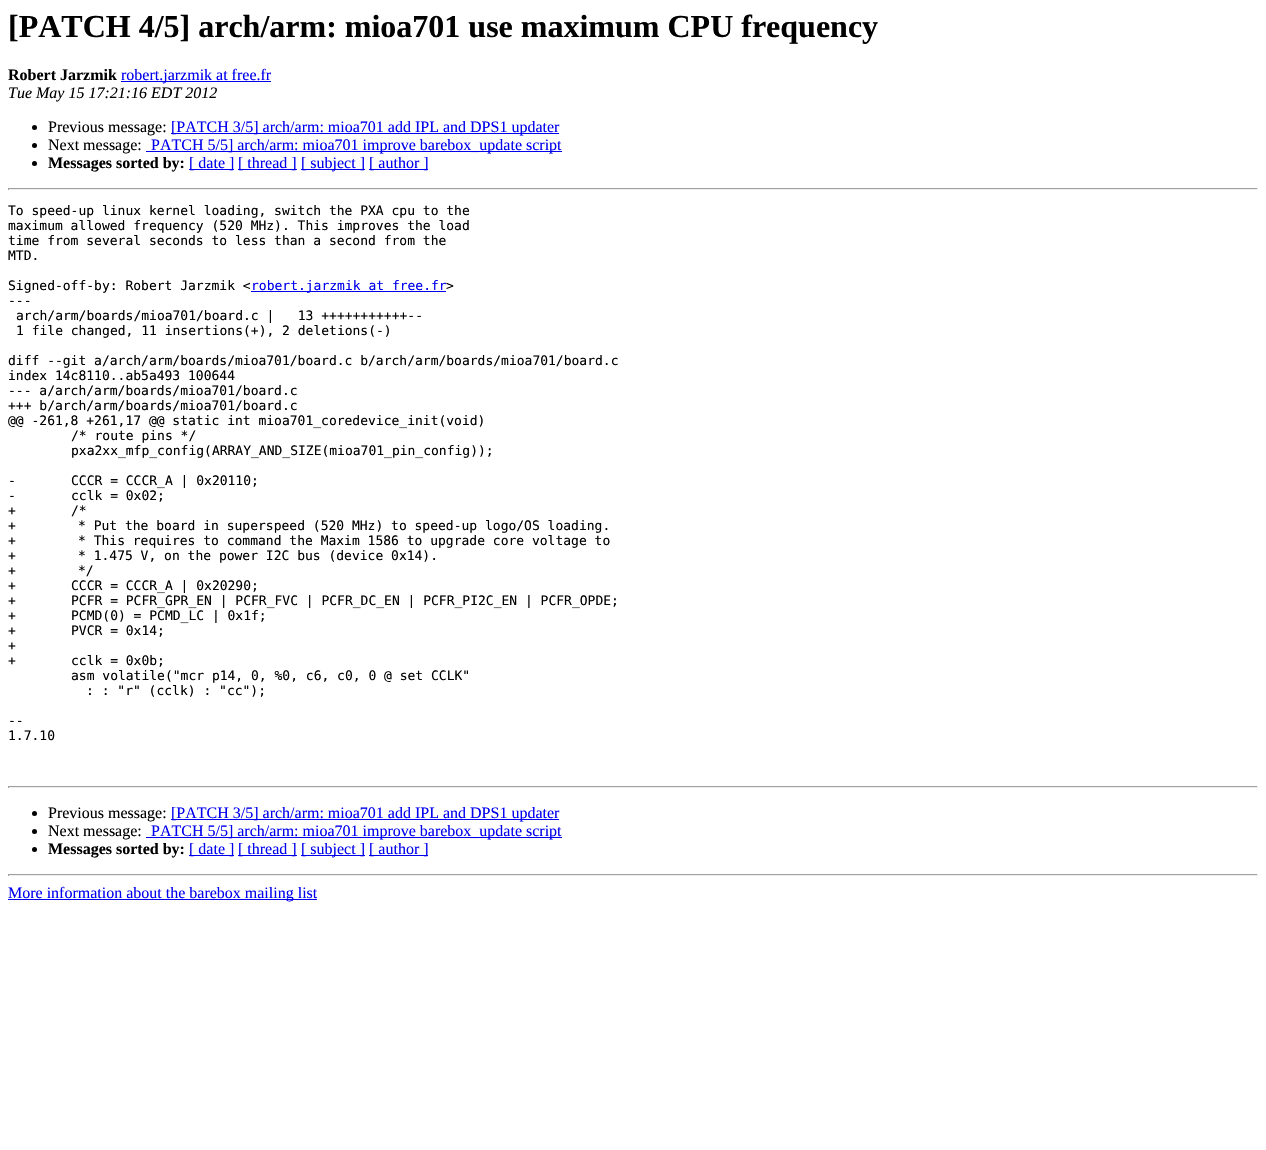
static SkFont makeFont(const char* family, int weight, float size, bool italic = false) {
  SkFontStyle style(weight, SkFontStyle::kNormal_Width,
    italic ? SkFontStyle::kItalic_Slant : SkFontStyle::kUpright_Slant);
  SkFont result(fontMgr->matchFamilyStyle(family, style), size);
  result.setSubpixel(true);
  return result;
}

static void text(SkCanvas* c, const char* s, float x, float y, const SkFont& font, SkColor color) {
  SkPaint ink(SkColor4f::FromColor(color));
  ink.setAntiAlias(true);
  c->drawString(s, x, y, font, ink);
}

static void box(SkCanvas* c, float l, float t, float r, float b, SkColor color) {
  SkPaint ink(SkColor4f::FromColor(color));
  ink.setAntiAlias(true);
  c->drawRect(SkRect::MakeLTRB(l, t, r, b), ink);
}

void draw(SkCanvas* c) {
  SkPaint paint;
  paint.setAntiAlias(true);
  c->clear(0xffffffff);
  SkFont face1 = makeFont("Liberation Serif", 700, 32);
  text(c, "[PATCH 4/5] arch/arm: mioa701 use maximum CPU frequency", 8, 37, face1, 0xff000000);
  SkFont face2 = makeFont("Liberation Serif", 700, 16);
  text(c, "Robert Jarzmik", 8, 80, face2, 0xff000000);
  box(c, 121, 81, 271, 82, 0xff0000ee);
  SkFont face3 = makeFont("Liberation Serif", 400, 16);
  text(c, "robert.jarzmik at free.fr", 121, 80, face3, 0xff0000ee);
  SkFont face4 = makeFont("Liberation Serif", 400, 16, true);
  text(c, "Tue May 15 17:21:16 EDT 2012", 8, 98, face4, 0xff000000);
  paint.setColor(0xff000000);
  c->drawCircle(34.5f, 127.5f, 2.5f, paint);
  text(c, "Previous message:", 48, 132, face3, 0xff000000);
  box(c, 171, 133, 559, 134, 0xff0000ee);
  text(c, "[PATCH 3/5] arch/arm: mioa701 add IPL and DPS1 updater", 171, 132, face3, 0xff0000ee);
  c->drawCircle(34.5f, 145.5f, 2.5f, paint);
  text(c, "Next message:", 48, 150, face3, 0xff000000);
  box(c, 146, 151, 562, 152, 0xff0000ee);
  text(c, "PATCH 5/5] arch/arm: mioa701 improve barebox_update script", 151, 150, face3, 0xff0000ee);
  c->drawCircle(34.5f, 163.5f, 2.5f, paint);
  text(c, "Messages sorted by:", 48, 168, face2, 0xff000000);
  box(c, 189, 169, 234, 170, 0xff0000ee);
  text(c, "[ date ]", 189, 168, face3, 0xff0000ee);
  box(c, 238, 169, 297, 170, 0xff0000ee);
  text(c, "[ thread ]", 238, 168, face3, 0xff0000ee);
  box(c, 301, 169, 365, 170, 0xff0000ee);
  text(c, "[ subject ]", 301, 168, face3, 0xff0000ee);
  box(c, 369, 169, 428, 170, 0xff0000ee);
  text(c, "[ author ]", 369, 168, face3, 0xff0000ee);
  box(c, 8, 188, 1258, 189, 0xff9f9f9f);
  box(c, 1257, 188, 1258, 190, 0xffeeeeee);
  box(c, 8, 189, 1258, 190, 0xffeeeeee);
  box(c, 8, 188, 9, 190, 0xff9f9f9f);
  SkFont face5 = makeFont("DejaVu Sans Mono", 400, 13);
  text(c, "To speed-up linux kernel loading, switch the PXA cpu to the", 8, 215, face5, 0xff000000);
  text(c, "maximum allowed frequency (520 MHz). This improves the load", 8, 230, face5, 0xff000000);
  text(c, "time from several seconds to less than a second from the", 8, 245, face5, 0xff000000);
  text(c, "MTD.", 8, 260, face5, 0xff000000);
  text(c, "Signed-off-by: Robert Jarzmik <", 8, 290, face5, 0xff000000);
  box(c, 251, 291, 446, 292, 0xff0000ee);
  text(c, "robert.jarzmik at free.fr", 251, 290, face5, 0xff0000ee);
  text(c, ">", 446, 290, face5, 0xff000000);
  text(c, "---", 8, 305, face5, 0xff000000);
  text(c, "arch/arm/boards/mioa701/board.c |   13 +++++++++++--", 16, 320, face5, 0xff000000);
  text(c, "1 file changed, 11 insertions(+), 2 deletions(-)", 16, 335, face5, 0xff000000);
  text(c, "diff --git a/arch/arm/boards/mioa701/board.c b/arch/arm/boards/mioa701/board.c", 8, 365, face5, 0xff000000);
  text(c, "index 14c8110..ab5a493 100644", 8, 380, face5, 0xff000000);
  text(c, "--- a/arch/arm/boards/mioa701/board.c", 8, 395, face5, 0xff000000);
  text(c, "+++ b/arch/arm/boards/mioa701/board.c", 8, 410, face5, 0xff000000);
  text(c, "@@ -261,8 +261,17 @@ static int mioa701_coredevice_init(void)", 8, 425, face5, 0xff000000);
  text(c, "/* route pins */", 71, 440, face5, 0xff000000);
  text(c, "pxa2xx_mfp_config(ARRAY_AND_SIZE(mioa701_pin_config));", 71, 455, face5, 0xff000000);
  text(c, "-", 8, 485, face5, 0xff000000);
  text(c, "CCCR = CCCR_A | 0x20110;", 71, 485, face5, 0xff000000);
  text(c, "-", 8, 500, face5, 0xff000000);
  text(c, "cclk = 0x02;", 71, 500, face5, 0xff000000);
  text(c, "+", 8, 515, face5, 0xff000000);
  text(c, "/*", 71, 515, face5, 0xff000000);
  text(c, "+", 8, 530, face5, 0xff000000);
  text(c, "* Put the board in superspeed (520 MHz) to speed-up logo/OS loading.", 78, 530, face5, 0xff000000);
  text(c, "+", 8, 545, face5, 0xff000000);
  text(c, "* This requires to command the Maxim 1586 to upgrade core voltage to", 78, 545, face5, 0xff000000);
  text(c, "+", 8, 560, face5, 0xff000000);
  text(c, "* 1.475 V, on the power I2C bus (device 0x14).", 78, 560, face5, 0xff000000);
  text(c, "+", 8, 575, face5, 0xff000000);
  text(c, "*/", 78, 575, face5, 0xff000000);
  text(c, "+", 8, 590, face5, 0xff000000);
  text(c, "CCCR = CCCR_A | 0x20290;", 71, 590, face5, 0xff000000);
  text(c, "+", 8, 605, face5, 0xff000000);
  text(c, "PCFR = PCFR_GPR_EN | PCFR_FVC | PCFR_DC_EN | PCFR_PI2C_EN | PCFR_OPDE;", 71, 605, face5, 0xff000000);
  text(c, "+", 8, 620, face5, 0xff000000);
  text(c, "PCMD(0) = PCMD_LC | 0x1f;", 71, 620, face5, 0xff000000);
  text(c, "+", 8, 635, face5, 0xff000000);
  text(c, "PVCR = 0x14;", 71, 635, face5, 0xff000000);
  text(c, "+", 8, 650, face5, 0xff000000);
  text(c, "+", 8, 665, face5, 0xff000000);
  text(c, "cclk = 0x0b;", 71, 665, face5, 0xff000000);
  text(c, "asm volatile(\"mcr p14, 0, %0, c6, c0, 0 @ set CCLK\"", 71, 680, face5, 0xff000000);
  text(c, ": : \"r\" (cclk) : \"cc\");", 86, 695, face5, 0xff000000);
  text(c, "--", 8, 725, face5, 0xff000000);
  text(c, "1.7.10", 8, 740, face5, 0xff000000);
  box(c, 8, 786, 1258, 787, 0xff9f9f9f);
  box(c, 1257, 786, 1258, 788, 0xffeeeeee);
  box(c, 8, 787, 1258, 788, 0xffeeeeee);
  box(c, 8, 786, 9, 788, 0xff9f9f9f);
  c->drawCircle(34.5f, 813.5f, 2.5f, paint);
  text(c, "Previous message:", 48, 818, face3, 0xff000000);
  box(c, 171, 819, 559, 820, 0xff0000ee);
  text(c, "[PATCH 3/5] arch/arm: mioa701 add IPL and DPS1 updater", 171, 818, face3, 0xff0000ee);
  c->drawCircle(34.5f, 831.5f, 2.5f, paint);
  text(c, "Next message:", 48, 836, face3, 0xff000000);
  box(c, 146, 837, 562, 838, 0xff0000ee);
  text(c, "PATCH 5/5] arch/arm: mioa701 improve barebox_update script", 151, 836, face3, 0xff0000ee);
  c->drawCircle(34.5f, 849.5f, 2.5f, paint);
  text(c, "Messages sorted by:", 48, 854, face2, 0xff000000);
  box(c, 189, 855, 234, 856, 0xff0000ee);
  text(c, "[ date ]", 189, 854, face3, 0xff0000ee);
  box(c, 238, 855, 297, 856, 0xff0000ee);
  text(c, "[ thread ]", 238, 854, face3, 0xff0000ee);
  box(c, 301, 855, 365, 856, 0xff0000ee);
  text(c, "[ subject ]", 301, 854, face3, 0xff0000ee);
  box(c, 369, 855, 428, 856, 0xff0000ee);
  text(c, "[ author ]", 369, 854, face3, 0xff0000ee);
  box(c, 8, 874, 1258, 875, 0xff9f9f9f);
  box(c, 1257, 874, 1258, 876, 0xffeeeeee);
  box(c, 8, 875, 1258, 876, 0xffeeeeee);
  box(c, 8, 874, 9, 876, 0xff9f9f9f);
  box(c, 8, 899, 317, 900, 0xff0000ee);
  text(c, "More information about the barebox mailing list", 8, 898, face3, 0xff0000ee);
}
